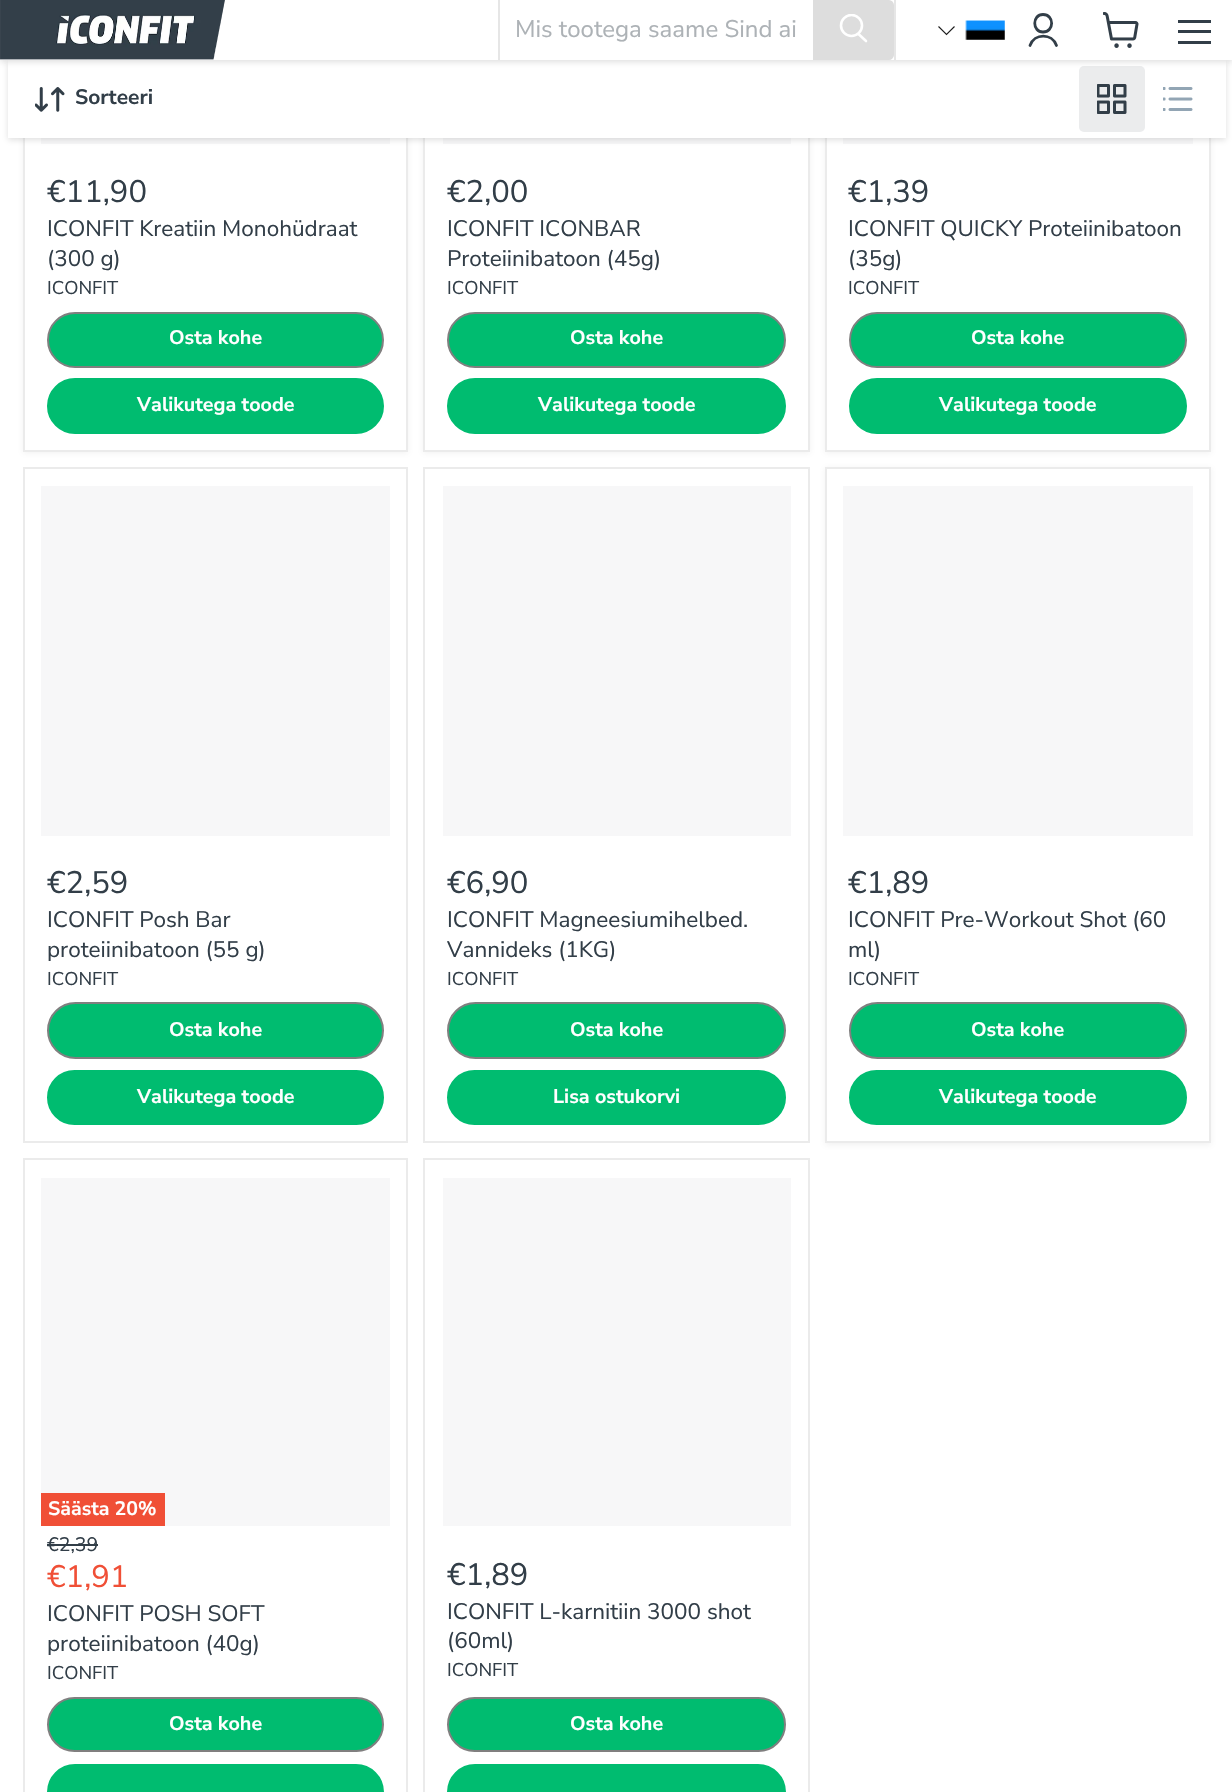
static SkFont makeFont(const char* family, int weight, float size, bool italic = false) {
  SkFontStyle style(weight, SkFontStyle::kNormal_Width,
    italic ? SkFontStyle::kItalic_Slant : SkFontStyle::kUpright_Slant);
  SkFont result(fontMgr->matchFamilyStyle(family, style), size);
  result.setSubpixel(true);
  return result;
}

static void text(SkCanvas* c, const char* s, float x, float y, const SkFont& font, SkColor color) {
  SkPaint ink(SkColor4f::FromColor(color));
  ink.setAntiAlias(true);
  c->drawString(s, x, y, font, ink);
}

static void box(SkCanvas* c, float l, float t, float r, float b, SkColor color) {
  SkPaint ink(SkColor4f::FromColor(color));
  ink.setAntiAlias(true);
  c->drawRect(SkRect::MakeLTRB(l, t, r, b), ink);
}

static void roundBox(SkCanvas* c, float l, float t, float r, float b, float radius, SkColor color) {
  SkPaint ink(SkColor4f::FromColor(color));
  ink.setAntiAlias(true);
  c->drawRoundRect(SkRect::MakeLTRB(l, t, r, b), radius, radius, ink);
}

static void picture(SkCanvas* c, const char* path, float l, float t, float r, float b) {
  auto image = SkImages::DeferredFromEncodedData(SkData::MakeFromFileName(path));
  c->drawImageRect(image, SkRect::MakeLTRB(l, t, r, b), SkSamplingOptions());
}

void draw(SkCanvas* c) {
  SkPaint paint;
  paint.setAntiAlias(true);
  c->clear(0xffffffff);
  paint.setColor(0x1c808080);
  paint.setMaskFilter(SkMaskFilter::MakeBlur(kNormal_SkBlurStyle, 3));
  c->drawRect(SkRect::MakeLTRB(23, -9, 408, 453), paint);
  paint.setMaskFilter(nullptr);
  box(c, 25, 138, 406, 450, 0xffffffff);
  paint.setStyle(SkPaint::kStroke_Style);
  paint.setStrokeWidth(2);
  paint.setColor(0xffebebeb);
  c->drawRect(SkRect::MakeLTRB(24, -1, 407, 451), paint);
  box(c, 41, 138, 390, 144, 0xfff7f7f8);
  paint.setStyle(SkPaint::kFill_Style);
  paint.setColor(0x1c808080);
  paint.setMaskFilter(SkMaskFilter::MakeBlur(kNormal_SkBlurStyle, 3));
  c->drawRect(SkRect::MakeLTRB(423, -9, 810, 453), paint);
  paint.setMaskFilter(nullptr);
  box(c, 425, 138, 808, 450, 0xffffffff);
  paint.setStyle(SkPaint::kStroke_Style);
  paint.setColor(0xffebebeb);
  c->drawRect(SkRect::MakeLTRB(424, -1, 809, 451), paint);
  box(c, 443, 138, 791, 144, 0xfff7f7f8);
  paint.setStyle(SkPaint::kFill_Style);
  paint.setColor(0x1c808080);
  paint.setMaskFilter(SkMaskFilter::MakeBlur(kNormal_SkBlurStyle, 3));
  c->drawRect(SkRect::MakeLTRB(825, -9, 1211, 453), paint);
  paint.setMaskFilter(nullptr);
  box(c, 827, 138, 1209, 450, 0xffffffff);
  paint.setStyle(SkPaint::kStroke_Style);
  paint.setColor(0xffebebeb);
  c->drawRect(SkRect::MakeLTRB(826, -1, 1210, 451), paint);
  box(c, 843, 138, 1193, 144, 0xfff7f7f8);
  paint.setStyle(SkPaint::kFill_Style);
  paint.setColor(0x40808080);
  paint.setMaskFilter(SkMaskFilter::MakeBlur(kNormal_SkBlurStyle, 3));
  c->drawRect(SkRect::MakeLTRB(8, 62, 1226, 140), paint);
  paint.setMaskFilter(nullptr);
  box(c, 8, 60, 1226, 138, 0xffffffff);
  roundBox(c, 1079, 66, 1145, 132, 5, 0xffebeced);
  paint.setMaskFilter(SkMaskFilter::MakeBlur(kNormal_SkBlurStyle, 3));
  c->drawRect(SkRect::MakeLTRB(0, 2, 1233, 62), paint);
  paint.setMaskFilter(nullptr);
  box(c, 0, 0, 1232, 60, 0xffffffff);
  picture(c, "img_01.png", 0, 0, 225, 60);
  box(c, 894, 0, 896, 60, 0xffe6e6e6);
  box(c, 498, 0, 500, 60, 0xffe6e6e6);
  SkFont face1 = makeFont("Nunito Sans", 400, 24);
  text(c, "Mis tootega saame Sind ai", 515, 37, face1, 0xffadb2b6);
  paint.setColor(0xffdddddd);
  c->drawPath(SkPathBuilder().moveTo(814, 1).lineTo(889, 1).cubicTo(891, 1, 893, 3, 893, 5).lineTo(893, 55).cubicTo(893, 57, 891, 59, 889, 59).lineTo(814, 59).close().detach(), paint);
  paint.setStyle(SkPaint::kStroke_Style);
  c->drawPath(SkPathBuilder().moveTo(814, 1).lineTo(889, 1).cubicTo(891, 1, 893, 3, 893, 5).lineTo(893, 55).cubicTo(893, 57, 891, 59, 889, 59).lineTo(814, 59).close().detach(), paint);
  paint.setStrokeWidth(2.6f);
  paint.setStrokeCap(SkPaint::kRound_Cap);
  paint.setColor(0xffffffff);
  c->drawPath(SkPathBuilder().moveTo(866, 41).lineTo(858.5f, 34).detach(), paint);
  c->save();
  c->clipRect(SkRect::MakeLTRB(839, 14, 869, 45));
  paint.setStrokeCap(SkPaint::kButt_Cap);
  c->drawCircle(851.5f, 25.5f, 10.5f, paint);
  c->restore();
  paint.setStrokeWidth(1.1f);
  paint.setColor(0xff1d1d1d);
  c->drawPath(SkPathBuilder().moveTo(938.5f, 26.5f).lineTo(946.5f, 34.5f).lineTo(954.5f, 26.5f).detach(), paint);
  picture(c, "img_02.png", 965, 20, 1005, 40);
  paint.setStrokeWidth(2.8f);
  paint.setStrokeCap(SkPaint::kRound_Cap);
  paint.setStrokeJoin(SkPaint::kRound_Join);
  paint.setColor(0xff323e48);
  c->drawPath(SkPathBuilder().moveTo(1043, 32).cubicTo(1054.5f, 32, 1054.5f, 14.5f, 1043, 14.5f).cubicTo(1032, 14.5f, 1032, 32, 1043, 32).close().moveTo(1056.5f, 45.5f).cubicTo(1052, 33, 1034.5f, 33, 1030, 45.5f).detach(), paint);
  picture(c, "img_03.png", 1103, 12, 1139, 48);
  box(c, 1178, 20, 1211, 23, 0xff323e48);
  box(c, 1178, 30, 1211, 33, 0xff323e48);
  box(c, 1178, 41, 1211, 44, 0xff323e48);
  picture(c, "img_04.png", 35, 87, 65, 112);
  SkFont face2 = makeFont("Nunito Sans", 700, 21);
  text(c, "Sorteeri", 75, 104, face2, 0xff323e48);
  picture(c, "img_05.png", 1097, 84, 1127, 114);
  picture(c, "img_06.png", 1163, 87, 1193, 111);
  SkFont face3 = makeFont("Nunito Sans", 400, 31);
  text(c, "€11,90", 47, 202, face3, 0xff323e48);
  SkFont face4 = makeFont("Nunito Sans", 400, 22.5f);
  text(c, "ICONFIT Kreatiin Monohüdraat", 47, 236, face4, 0xff323e48);
  text(c, "(300 g)", 47, 266, face4, 0xff323e48);
  SkFont face5 = makeFont("Nunito Sans", 400, 18.5f);
  text(c, "ICONFIT", 47, 294, face5, 0xff323e48);
  paint.setStyle(SkPaint::kFill_Style);
  paint.setColor(0xff00bc70);
  c->drawRoundRect(SkRect::MakeLTRB(48, 313, 383, 367), 27, 27, paint);
  paint.setStyle(SkPaint::kStroke_Style);
  paint.setStrokeWidth(2);
  paint.setStrokeCap(SkPaint::kButt_Cap);
  paint.setStrokeJoin(SkPaint::kMiter_Join);
  paint.setColor(0xff807f7f);
  c->drawRoundRect(SkRect::MakeLTRB(48, 313, 383, 367), 27, 27, paint);
  SkFont face6 = makeFont("Nunito Sans", 700, 19.75f);
  text(c, "Osta kohe", 169, 344, face6, 0xffffffff);
  paint.setStyle(SkPaint::kFill_Style);
  paint.setColor(0xff00bc70);
  c->drawRoundRect(SkRect::MakeLTRB(48, 379, 383, 433), 27, 27, paint);
  paint.setStyle(SkPaint::kStroke_Style);
  c->drawRoundRect(SkRect::MakeLTRB(48, 379, 383, 433), 27, 27, paint);
  text(c, "Valikutega toode", 137, 411, face6, 0xffffffff);
  text(c, "€2,00", 447, 202, face3, 0xff323e48);
  text(c, "ICONFIT ICONBAR", 447, 236, face4, 0xff323e48);
  text(c, "Proteiinibatoon (45g)", 447, 266, face4, 0xff323e48);
  text(c, "ICONFIT", 447, 294, face5, 0xff323e48);
  paint.setStyle(SkPaint::kFill_Style);
  c->drawRoundRect(SkRect::MakeLTRB(448, 313, 785, 367), 27, 27, paint);
  paint.setStyle(SkPaint::kStroke_Style);
  paint.setColor(0xff807f7f);
  c->drawRoundRect(SkRect::MakeLTRB(448, 313, 785, 367), 27, 27, paint);
  text(c, "Osta kohe", 570, 344, face6, 0xffffffff);
  paint.setStyle(SkPaint::kFill_Style);
  paint.setColor(0xff00bc70);
  c->drawRoundRect(SkRect::MakeLTRB(448, 379, 785, 433), 27, 27, paint);
  paint.setStyle(SkPaint::kStroke_Style);
  c->drawRoundRect(SkRect::MakeLTRB(448, 379, 785, 433), 27, 27, paint);
  text(c, "Valikutega toode", 538, 411, face6, 0xffffffff);
  text(c, "€1,39", 848, 202, face3, 0xff323e48);
  text(c, "ICONFIT QUICKY Proteiinibatoon", 848, 236, face4, 0xff323e48);
  text(c, "(35g)", 848, 266, face4, 0xff323e48);
  text(c, "ICONFIT", 848, 294, face5, 0xff323e48);
  paint.setStyle(SkPaint::kFill_Style);
  c->drawRoundRect(SkRect::MakeLTRB(850, 313, 1186, 367), 27, 27, paint);
  paint.setStyle(SkPaint::kStroke_Style);
  paint.setColor(0xff807f7f);
  c->drawRoundRect(SkRect::MakeLTRB(850, 313, 1186, 367), 27, 27, paint);
  text(c, "Osta kohe", 971, 344, face6, 0xffffffff);
  paint.setStyle(SkPaint::kFill_Style);
  paint.setColor(0xff00bc70);
  c->drawRoundRect(SkRect::MakeLTRB(850, 379, 1186, 433), 27, 27, paint);
  paint.setStyle(SkPaint::kStroke_Style);
  c->drawRoundRect(SkRect::MakeLTRB(850, 379, 1186, 433), 27, 27, paint);
  text(c, "Valikutega toode", 939, 411, face6, 0xffffffff);
  paint.setColor(0xffebebeb);
  c->drawRect(SkRect::MakeLTRB(24, 468, 407, 1142), paint);
  box(c, 41, 486, 390, 836, 0xfff7f7f8);
  text(c, "€2,59", 47, 893, face3, 0xff323e48);
  text(c, "ICONFIT Posh Bar", 47, 927, face4, 0xff323e48);
  text(c, "proteiinibatoon (55 g)", 47, 957, face4, 0xff323e48);
  text(c, "ICONFIT", 47, 985, face5, 0xff323e48);
  paint.setStyle(SkPaint::kFill_Style);
  paint.setColor(0xff00bc70);
  c->drawRoundRect(SkRect::MakeLTRB(48, 1003, 383, 1058), 27.5f, 27.5f, paint);
  paint.setStyle(SkPaint::kStroke_Style);
  paint.setColor(0xff807f7f);
  c->drawRoundRect(SkRect::MakeLTRB(48, 1003, 383, 1058), 27.5f, 27.5f, paint);
  text(c, "Osta kohe", 169, 1036, face6, 0xffffffff);
  paint.setStyle(SkPaint::kFill_Style);
  paint.setColor(0xff00bc70);
  c->drawRoundRect(SkRect::MakeLTRB(48, 1071, 383, 1124), 26.5f, 26.5f, paint);
  paint.setStyle(SkPaint::kStroke_Style);
  c->drawRoundRect(SkRect::MakeLTRB(48, 1071, 383, 1124), 26.5f, 26.5f, paint);
  text(c, "Valikutega toode", 137, 1103, face6, 0xffffffff);
  paint.setColor(0xffebebeb);
  c->drawRect(SkRect::MakeLTRB(424, 468, 809, 1142), paint);
  box(c, 443, 486, 791, 836, 0xfff7f7f8);
  text(c, "€6,90", 447, 893, face3, 0xff323e48);
  text(c, "ICONFIT Magneesiumihelbed.", 447, 927, face4, 0xff323e48);
  text(c, "Vannideks (1KG)", 447, 957, face4, 0xff323e48);
  text(c, "ICONFIT", 447, 985, face5, 0xff323e48);
  paint.setStyle(SkPaint::kFill_Style);
  paint.setColor(0xff00bc70);
  c->drawRoundRect(SkRect::MakeLTRB(448, 1003, 785, 1058), 27.5f, 27.5f, paint);
  paint.setStyle(SkPaint::kStroke_Style);
  paint.setColor(0xff807f7f);
  c->drawRoundRect(SkRect::MakeLTRB(448, 1003, 785, 1058), 27.5f, 27.5f, paint);
  text(c, "Osta kohe", 570, 1036, face6, 0xffffffff);
  paint.setStyle(SkPaint::kFill_Style);
  paint.setColor(0xff00bc70);
  c->drawRoundRect(SkRect::MakeLTRB(448, 1071, 785, 1124), 26.5f, 26.5f, paint);
  paint.setStyle(SkPaint::kStroke_Style);
  c->drawRoundRect(SkRect::MakeLTRB(448, 1071, 785, 1124), 26.5f, 26.5f, paint);
  text(c, "Lisa ostukorvi", 553, 1103, face6, 0xffffffff);
  paint.setStyle(SkPaint::kFill_Style);
  paint.setColor(0x1c808080);
  paint.setMaskFilter(SkMaskFilter::MakeBlur(kNormal_SkBlurStyle, 3));
  c->drawRect(SkRect::MakeLTRB(825, 468, 1211, 1145), paint);
  paint.setMaskFilter(nullptr);
  paint.setColor(0xffffffff);
  c->drawRect(SkRect::MakeLTRB(826, 468, 1210, 1142), paint);
  paint.setStyle(SkPaint::kStroke_Style);
  paint.setColor(0xffebebeb);
  c->drawRect(SkRect::MakeLTRB(826, 468, 1210, 1142), paint);
  box(c, 843, 486, 1193, 836, 0xfff7f7f8);
  text(c, "€1,89", 848, 893, face3, 0xff323e48);
  text(c, "ICONFIT Pre-Workout Shot (60", 848, 927, face4, 0xff323e48);
  text(c, "ml)", 848, 957, face4, 0xff323e48);
  text(c, "ICONFIT", 848, 985, face5, 0xff323e48);
  paint.setStyle(SkPaint::kFill_Style);
  paint.setColor(0xff00bc70);
  c->drawRoundRect(SkRect::MakeLTRB(850, 1003, 1186, 1058), 27.5f, 27.5f, paint);
  paint.setStyle(SkPaint::kStroke_Style);
  paint.setColor(0xff807f7f);
  c->drawRoundRect(SkRect::MakeLTRB(850, 1003, 1186, 1058), 27.5f, 27.5f, paint);
  text(c, "Osta kohe", 971, 1036, face6, 0xffffffff);
  paint.setStyle(SkPaint::kFill_Style);
  paint.setColor(0xff00bc70);
  c->drawRoundRect(SkRect::MakeLTRB(850, 1071, 1186, 1124), 26.5f, 26.5f, paint);
  paint.setStyle(SkPaint::kStroke_Style);
  c->drawRoundRect(SkRect::MakeLTRB(850, 1071, 1186, 1124), 26.5f, 26.5f, paint);
  text(c, "Valikutega toode", 939, 1103, face6, 0xffffffff);
  paint.setColor(0xffebebeb);
  c->drawRect(SkRect::MakeLTRB(24, 1159, 407, 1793), paint);
  box(c, 41, 1178, 390, 1526, 0xfff7f7f8);
  box(c, 41, 1493, 165, 1526, 0xfff04f36);
  SkFont face7 = makeFont("Nunito Sans", 700, 19.5f);
  text(c, "Säästa 20%", 48, 1515, face7, 0xffffffff);
  SkFont face8 = makeFont("Nunito Sans", 400, 19.5f);
  text(c, "€2,39", 47, 1551, face8, 0xff323e48);
  box(c, 47, 1544, 98, 1546, 0xff323e48);
  text(c, "€1,91", 47, 1587, face3, 0xfff04f36);
  text(c, "ICONFIT POSH SOFT", 47, 1621, face4, 0xff323e48);
  text(c, "proteiinibatoon (40g)", 47, 1651, face4, 0xff323e48);
  text(c, "ICONFIT", 47, 1679, face5, 0xff323e48);
  paint.setStyle(SkPaint::kFill_Style);
  paint.setColor(0xff00bc70);
  c->drawRoundRect(SkRect::MakeLTRB(48, 1698, 383, 1751), 26.5f, 26.5f, paint);
  paint.setStyle(SkPaint::kStroke_Style);
  paint.setColor(0xff807f7f);
  c->drawRoundRect(SkRect::MakeLTRB(48, 1698, 383, 1751), 26.5f, 26.5f, paint);
  text(c, "Osta kohe", 169, 1730, face6, 0xffffffff);
  paint.setStyle(SkPaint::kFill_Style);
  paint.setColor(0xff00bc70);
  c->drawRoundRect(SkRect::MakeLTRB(48, 1765, 383, 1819), 27, 27, paint);
  paint.setStyle(SkPaint::kStroke_Style);
  c->drawRoundRect(SkRect::MakeLTRB(48, 1765, 383, 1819), 27, 27, paint);
  paint.setColor(0xffebebeb);
  c->drawRect(SkRect::MakeLTRB(424, 1159, 809, 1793), paint);
  box(c, 443, 1178, 791, 1526, 0xfff7f7f8);
  text(c, "€1,89", 447, 1585, face3, 0xff323e48);
  text(c, "ICONFIT L-karnitiin 3000 shot", 447, 1619, face4, 0xff323e48);
  text(c, "(60ml)", 447, 1648, face4, 0xff323e48);
  text(c, "ICONFIT", 447, 1676, face5, 0xff323e48);
  paint.setStyle(SkPaint::kFill_Style);
  paint.setColor(0xff00bc70);
  c->drawRoundRect(SkRect::MakeLTRB(448, 1698, 785, 1751), 26.5f, 26.5f, paint);
  paint.setStyle(SkPaint::kStroke_Style);
  paint.setColor(0xff807f7f);
  c->drawRoundRect(SkRect::MakeLTRB(448, 1698, 785, 1751), 26.5f, 26.5f, paint);
  text(c, "Osta kohe", 570, 1730, face6, 0xffffffff);
  paint.setStyle(SkPaint::kFill_Style);
  paint.setColor(0xff00bc70);
  c->drawRoundRect(SkRect::MakeLTRB(448, 1765, 785, 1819), 27, 27, paint);
  paint.setStyle(SkPaint::kStroke_Style);
  c->drawRoundRect(SkRect::MakeLTRB(448, 1765, 785, 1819), 27, 27, paint);
}
